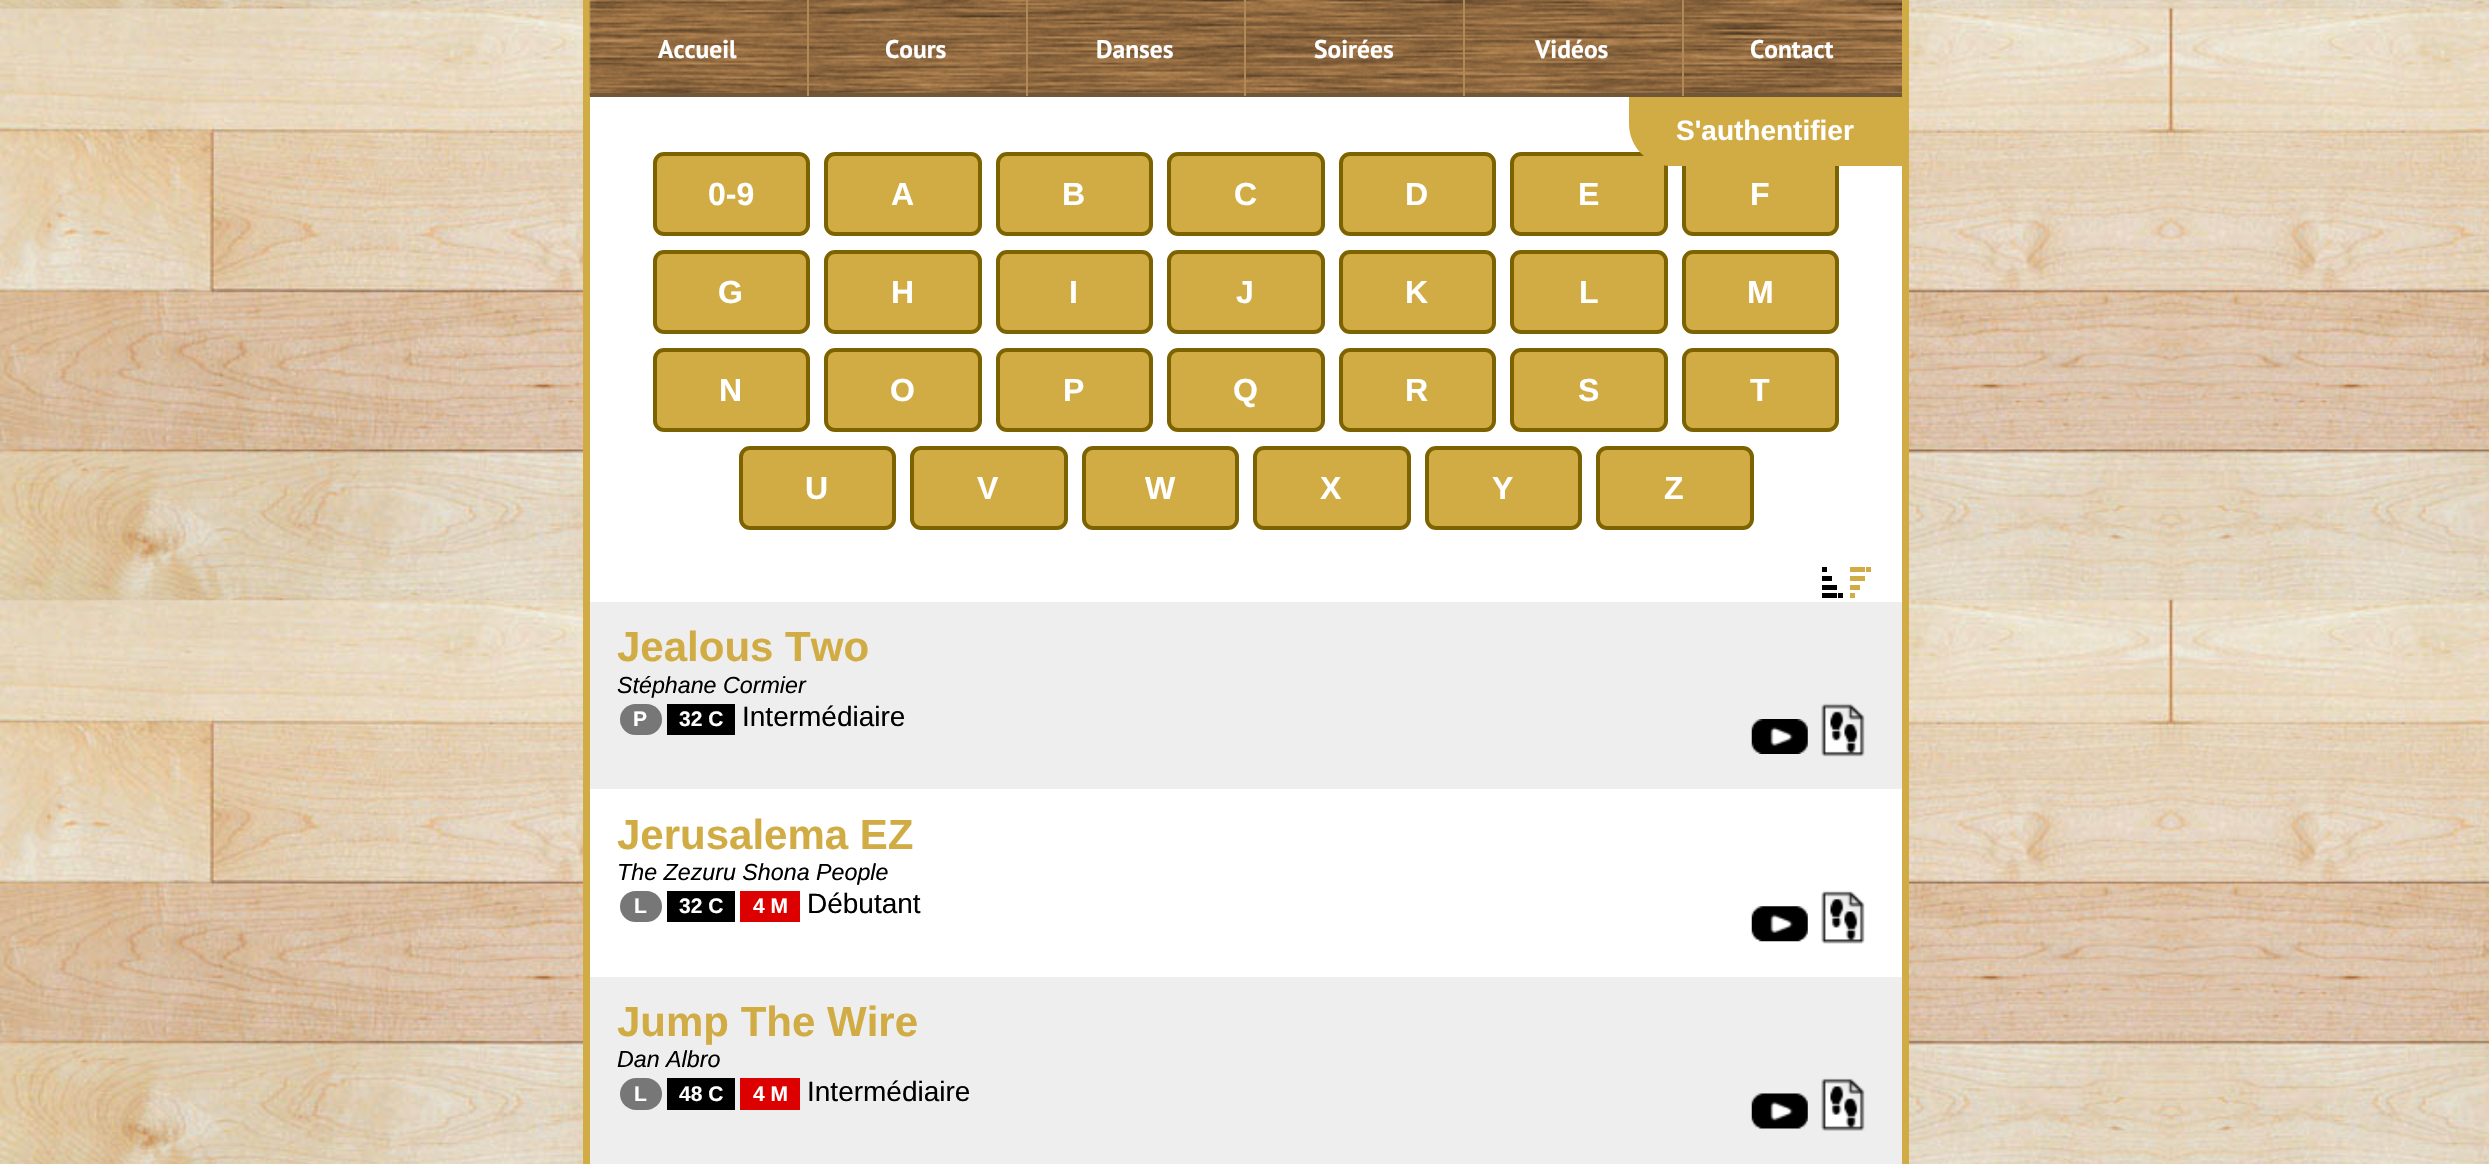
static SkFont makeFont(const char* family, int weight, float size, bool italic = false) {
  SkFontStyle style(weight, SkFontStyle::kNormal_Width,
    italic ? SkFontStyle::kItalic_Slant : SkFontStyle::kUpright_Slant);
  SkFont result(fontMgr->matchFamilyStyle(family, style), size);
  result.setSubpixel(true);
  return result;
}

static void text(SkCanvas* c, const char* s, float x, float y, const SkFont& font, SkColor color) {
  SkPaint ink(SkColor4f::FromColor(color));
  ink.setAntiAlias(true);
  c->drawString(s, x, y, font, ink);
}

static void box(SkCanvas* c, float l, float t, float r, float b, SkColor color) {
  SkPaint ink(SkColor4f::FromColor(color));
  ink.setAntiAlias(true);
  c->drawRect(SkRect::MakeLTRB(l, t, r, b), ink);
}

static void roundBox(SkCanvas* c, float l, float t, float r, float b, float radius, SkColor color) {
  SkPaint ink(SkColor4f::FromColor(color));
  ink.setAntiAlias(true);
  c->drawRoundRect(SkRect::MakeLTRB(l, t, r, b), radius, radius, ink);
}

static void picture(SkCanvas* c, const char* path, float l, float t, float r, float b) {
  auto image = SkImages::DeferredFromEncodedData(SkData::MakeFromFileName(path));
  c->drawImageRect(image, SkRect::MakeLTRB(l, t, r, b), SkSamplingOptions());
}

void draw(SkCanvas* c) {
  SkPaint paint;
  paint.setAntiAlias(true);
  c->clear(0xffffffff);
  picture(c, "img_01.png", 0, 0, 2489, 1164);
  box(c, 590, 0, 1902, 977, 0xffffffff);
  paint.setStyle(SkPaint::kStroke_Style);
  paint.setStrokeWidth(7);
  paint.setColor(0xffd1ac44);
  c->drawRect(SkRect::MakeLTRB(586.5f, -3.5f, 1905.5f, 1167.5f), paint);
  picture(c, "img_02.png", 589, 0, 1902, 96);
  paint.setStyle(SkPaint::kFill_Style);
  c->drawRoundRect(SkRect::MakeLTRB(1512, 154, 1666, 234), 9, 9, paint);
  paint.setStyle(SkPaint::kStroke_Style);
  paint.setStrokeWidth(4);
  paint.setColor(0xff7d6200);
  c->drawRoundRect(SkRect::MakeLTRB(1512, 154, 1666, 234), 9, 9, paint);
  paint.setStyle(SkPaint::kFill_Style);
  paint.setColor(0xffd1ac44);
  c->drawRoundRect(SkRect::MakeLTRB(1684, 154, 1837, 234), 9, 9, paint);
  paint.setStyle(SkPaint::kStroke_Style);
  paint.setColor(0xff7d6200);
  c->drawRoundRect(SkRect::MakeLTRB(1684, 154, 1837, 234), 9, 9, paint);
  paint.setStyle(SkPaint::kFill_Style);
  paint.setColor(0xffd1ac44);
  c->drawPath(SkPathBuilder().moveTo(1629, 96).lineTo(1902, 96).lineTo(1902, 166).lineTo(1671, 166).cubicTo(1648, 166, 1629, 147, 1629, 124).close().detach(), paint);
  box(c, 590, 93, 1902, 97, 0xff705737);
  box(c, 807, 0, 809, 96, 0xffb08957);
  SkFont face1 = makeFont("PT Sans", 700, 25.5f);
  text(c, "Accueil", 658, 58, face1, 0xffffffff);
  box(c, 1026, 0, 1028, 96, 0xffb08957);
  text(c, "Cours", 885, 58, face1, 0xffffffff);
  box(c, 1244, 0, 1246, 96, 0xffb08957);
  text(c, "Danses", 1096, 58, face1, 0xffffffff);
  box(c, 1463, 0, 1465, 96, 0xffb08957);
  text(c, "Soirées", 1314, 58, face1, 0xffffffff);
  box(c, 1682, 0, 1684, 96, 0xffb08957);
  text(c, "Vidéos", 1535, 58, face1, 0xffffffff);
  text(c, "Contact", 1750, 58, face1, 0xffffffff);
  SkFont face2 = makeFont("Liberation Sans", 700, 28);
  text(c, "S'authentifier", 1676, 140, face2, 0xffffffff);
  c->drawRoundRect(SkRect::MakeLTRB(655, 154, 808, 234), 9, 9, paint);
  paint.setStyle(SkPaint::kStroke_Style);
  paint.setColor(0xff7d6200);
  c->drawRoundRect(SkRect::MakeLTRB(655, 154, 808, 234), 9, 9, paint);
  SkFont face3 = makeFont("Liberation Sans", 700, 32);
  text(c, "0-9", 708, 205, face3, 0xffffffff);
  paint.setStyle(SkPaint::kFill_Style);
  paint.setColor(0xffd1ac44);
  c->drawRoundRect(SkRect::MakeLTRB(826, 154, 980, 234), 9, 9, paint);
  paint.setStyle(SkPaint::kStroke_Style);
  paint.setColor(0xff7d6200);
  c->drawRoundRect(SkRect::MakeLTRB(826, 154, 980, 234), 9, 9, paint);
  text(c, "A", 891, 205, face3, 0xffffffff);
  paint.setStyle(SkPaint::kFill_Style);
  paint.setColor(0xffd1ac44);
  c->drawRoundRect(SkRect::MakeLTRB(998, 154, 1151, 234), 9, 9, paint);
  paint.setStyle(SkPaint::kStroke_Style);
  paint.setColor(0xff7d6200);
  c->drawRoundRect(SkRect::MakeLTRB(998, 154, 1151, 234), 9, 9, paint);
  text(c, "B", 1062, 205, face3, 0xffffffff);
  paint.setStyle(SkPaint::kFill_Style);
  paint.setColor(0xffd1ac44);
  c->drawRoundRect(SkRect::MakeLTRB(1169, 154, 1323, 234), 9, 9, paint);
  paint.setStyle(SkPaint::kStroke_Style);
  paint.setColor(0xff7d6200);
  c->drawRoundRect(SkRect::MakeLTRB(1169, 154, 1323, 234), 9, 9, paint);
  text(c, "C", 1234, 205, face3, 0xffffffff);
  paint.setStyle(SkPaint::kFill_Style);
  paint.setColor(0xffd1ac44);
  c->drawRoundRect(SkRect::MakeLTRB(1341, 154, 1494, 234), 9, 9, paint);
  paint.setStyle(SkPaint::kStroke_Style);
  paint.setColor(0xff7d6200);
  c->drawRoundRect(SkRect::MakeLTRB(1341, 154, 1494, 234), 9, 9, paint);
  text(c, "D", 1405, 205, face3, 0xffffffff);
  text(c, "E", 1578, 205, face3, 0xffffffff);
  text(c, "F", 1750, 205, face3, 0xffffffff);
  paint.setStyle(SkPaint::kFill_Style);
  paint.setColor(0xffd1ac44);
  c->drawRoundRect(SkRect::MakeLTRB(655, 252, 808, 332), 9, 9, paint);
  paint.setStyle(SkPaint::kStroke_Style);
  paint.setColor(0xff7d6200);
  c->drawRoundRect(SkRect::MakeLTRB(655, 252, 808, 332), 9, 9, paint);
  text(c, "G", 718, 303, face3, 0xffffffff);
  paint.setStyle(SkPaint::kFill_Style);
  paint.setColor(0xffd1ac44);
  c->drawRoundRect(SkRect::MakeLTRB(826, 252, 980, 332), 9, 9, paint);
  paint.setStyle(SkPaint::kStroke_Style);
  paint.setColor(0xff7d6200);
  c->drawRoundRect(SkRect::MakeLTRB(826, 252, 980, 332), 9, 9, paint);
  text(c, "H", 891, 303, face3, 0xffffffff);
  paint.setStyle(SkPaint::kFill_Style);
  paint.setColor(0xffd1ac44);
  c->drawRoundRect(SkRect::MakeLTRB(998, 252, 1151, 332), 9, 9, paint);
  paint.setStyle(SkPaint::kStroke_Style);
  paint.setColor(0xff7d6200);
  c->drawRoundRect(SkRect::MakeLTRB(998, 252, 1151, 332), 9, 9, paint);
  text(c, "I", 1069, 303, face3, 0xffffffff);
  paint.setStyle(SkPaint::kFill_Style);
  paint.setColor(0xffd1ac44);
  c->drawRoundRect(SkRect::MakeLTRB(1169, 252, 1323, 332), 9, 9, paint);
  paint.setStyle(SkPaint::kStroke_Style);
  paint.setColor(0xff7d6200);
  c->drawRoundRect(SkRect::MakeLTRB(1169, 252, 1323, 332), 9, 9, paint);
  text(c, "J", 1236, 303, face3, 0xffffffff);
  paint.setStyle(SkPaint::kFill_Style);
  paint.setColor(0xffd1ac44);
  c->drawRoundRect(SkRect::MakeLTRB(1341, 252, 1494, 332), 9, 9, paint);
  paint.setStyle(SkPaint::kStroke_Style);
  paint.setColor(0xff7d6200);
  c->drawRoundRect(SkRect::MakeLTRB(1341, 252, 1494, 332), 9, 9, paint);
  text(c, "K", 1405, 303, face3, 0xffffffff);
  paint.setStyle(SkPaint::kFill_Style);
  paint.setColor(0xffd1ac44);
  c->drawRoundRect(SkRect::MakeLTRB(1512, 252, 1666, 332), 9, 9, paint);
  paint.setStyle(SkPaint::kStroke_Style);
  paint.setColor(0xff7d6200);
  c->drawRoundRect(SkRect::MakeLTRB(1512, 252, 1666, 332), 9, 9, paint);
  text(c, "L", 1579, 303, face3, 0xffffffff);
  paint.setStyle(SkPaint::kFill_Style);
  paint.setColor(0xffd1ac44);
  c->drawRoundRect(SkRect::MakeLTRB(1684, 252, 1837, 332), 9, 9, paint);
  paint.setStyle(SkPaint::kStroke_Style);
  paint.setColor(0xff7d6200);
  c->drawRoundRect(SkRect::MakeLTRB(1684, 252, 1837, 332), 9, 9, paint);
  text(c, "M", 1747, 303, face3, 0xffffffff);
  paint.setStyle(SkPaint::kFill_Style);
  paint.setColor(0xffd1ac44);
  c->drawRoundRect(SkRect::MakeLTRB(655, 350, 808, 430), 9, 9, paint);
  paint.setStyle(SkPaint::kStroke_Style);
  paint.setColor(0xff7d6200);
  c->drawRoundRect(SkRect::MakeLTRB(655, 350, 808, 430), 9, 9, paint);
  text(c, "N", 719, 401, face3, 0xffffffff);
  paint.setStyle(SkPaint::kFill_Style);
  paint.setColor(0xffd1ac44);
  c->drawRoundRect(SkRect::MakeLTRB(826, 350, 980, 430), 9, 9, paint);
  paint.setStyle(SkPaint::kStroke_Style);
  paint.setColor(0xff7d6200);
  c->drawRoundRect(SkRect::MakeLTRB(826, 350, 980, 430), 9, 9, paint);
  text(c, "O", 890, 401, face3, 0xffffffff);
  paint.setStyle(SkPaint::kFill_Style);
  paint.setColor(0xffd1ac44);
  c->drawRoundRect(SkRect::MakeLTRB(998, 350, 1151, 430), 9, 9, paint);
  paint.setStyle(SkPaint::kStroke_Style);
  paint.setColor(0xff7d6200);
  c->drawRoundRect(SkRect::MakeLTRB(998, 350, 1151, 430), 9, 9, paint);
  text(c, "P", 1063, 401, face3, 0xffffffff);
  paint.setStyle(SkPaint::kFill_Style);
  paint.setColor(0xffd1ac44);
  c->drawRoundRect(SkRect::MakeLTRB(1169, 350, 1323, 430), 9, 9, paint);
  paint.setStyle(SkPaint::kStroke_Style);
  paint.setColor(0xff7d6200);
  c->drawRoundRect(SkRect::MakeLTRB(1169, 350, 1323, 430), 9, 9, paint);
  text(c, "Q", 1233, 401, face3, 0xffffffff);
  paint.setStyle(SkPaint::kFill_Style);
  paint.setColor(0xffd1ac44);
  c->drawRoundRect(SkRect::MakeLTRB(1341, 350, 1494, 430), 9, 9, paint);
  paint.setStyle(SkPaint::kStroke_Style);
  paint.setColor(0xff7d6200);
  c->drawRoundRect(SkRect::MakeLTRB(1341, 350, 1494, 430), 9, 9, paint);
  text(c, "R", 1405, 401, face3, 0xffffffff);
  paint.setStyle(SkPaint::kFill_Style);
  paint.setColor(0xffd1ac44);
  c->drawRoundRect(SkRect::MakeLTRB(1512, 350, 1666, 430), 9, 9, paint);
  paint.setStyle(SkPaint::kStroke_Style);
  paint.setColor(0xff7d6200);
  c->drawRoundRect(SkRect::MakeLTRB(1512, 350, 1666, 430), 9, 9, paint);
  text(c, "S", 1578, 401, face3, 0xffffffff);
  paint.setStyle(SkPaint::kFill_Style);
  paint.setColor(0xffd1ac44);
  c->drawRoundRect(SkRect::MakeLTRB(1684, 350, 1837, 430), 9, 9, paint);
  paint.setStyle(SkPaint::kStroke_Style);
  paint.setColor(0xff7d6200);
  c->drawRoundRect(SkRect::MakeLTRB(1684, 350, 1837, 430), 9, 9, paint);
  text(c, "T", 1750, 401, face3, 0xffffffff);
  paint.setStyle(SkPaint::kFill_Style);
  paint.setColor(0xffd1ac44);
  c->drawRoundRect(SkRect::MakeLTRB(741, 448, 894, 528), 9, 9, paint);
  paint.setStyle(SkPaint::kStroke_Style);
  paint.setColor(0xff7d6200);
  c->drawRoundRect(SkRect::MakeLTRB(741, 448, 894, 528), 9, 9, paint);
  text(c, "U", 805, 499, face3, 0xffffffff);
  paint.setStyle(SkPaint::kFill_Style);
  paint.setColor(0xffd1ac44);
  c->drawRoundRect(SkRect::MakeLTRB(912, 448, 1066, 528), 9, 9, paint);
  paint.setStyle(SkPaint::kStroke_Style);
  paint.setColor(0xff7d6200);
  c->drawRoundRect(SkRect::MakeLTRB(912, 448, 1066, 528), 9, 9, paint);
  text(c, "V", 977, 499, face3, 0xffffffff);
  paint.setStyle(SkPaint::kFill_Style);
  paint.setColor(0xffd1ac44);
  c->drawRoundRect(SkRect::MakeLTRB(1084, 448, 1237, 528), 9, 9, paint);
  paint.setStyle(SkPaint::kStroke_Style);
  paint.setColor(0xff7d6200);
  c->drawRoundRect(SkRect::MakeLTRB(1084, 448, 1237, 528), 9, 9, paint);
  text(c, "W", 1145, 499, face3, 0xffffffff);
  paint.setStyle(SkPaint::kFill_Style);
  paint.setColor(0xffd1ac44);
  c->drawRoundRect(SkRect::MakeLTRB(1255, 448, 1409, 528), 9, 9, paint);
  paint.setStyle(SkPaint::kStroke_Style);
  paint.setColor(0xff7d6200);
  c->drawRoundRect(SkRect::MakeLTRB(1255, 448, 1409, 528), 9, 9, paint);
  text(c, "X", 1320, 499, face3, 0xffffffff);
  paint.setStyle(SkPaint::kFill_Style);
  paint.setColor(0xffd1ac44);
  c->drawRoundRect(SkRect::MakeLTRB(1427, 448, 1580, 528), 9, 9, paint);
  paint.setStyle(SkPaint::kStroke_Style);
  paint.setColor(0xff7d6200);
  c->drawRoundRect(SkRect::MakeLTRB(1427, 448, 1580, 528), 9, 9, paint);
  text(c, "Y", 1492, 499, face3, 0xffffffff);
  paint.setStyle(SkPaint::kFill_Style);
  paint.setColor(0xffd1ac44);
  c->drawRoundRect(SkRect::MakeLTRB(1598, 448, 1752, 528), 9, 9, paint);
  paint.setStyle(SkPaint::kStroke_Style);
  paint.setColor(0xff7d6200);
  c->drawRoundRect(SkRect::MakeLTRB(1598, 448, 1752, 528), 9, 9, paint);
  text(c, "Z", 1664, 499, face3, 0xffffffff);
  box(c, 1838, 593, 1843, 598, 0xff000000);
  box(c, 1822, 593, 1837, 598, 0xff000000);
  box(c, 1822, 585, 1837, 590, 0xff000000);
  box(c, 1822, 576, 1832, 581, 0xff000000);
  box(c, 1822, 567, 1827, 572, 0xff000000);
  box(c, 1850, 593, 1855, 598, 0xffd1ac44);
  box(c, 1850, 585, 1860, 590, 0xffd1ac44);
  box(c, 1850, 576, 1865, 581, 0xffd1ac44);
  box(c, 1866, 567, 1871, 572, 0xffd1ac44);
  box(c, 1850, 567, 1865, 572, 0xffd1ac44);
  box(c, 590, 602, 1902, 789, 0xffeeeeee);
  SkFont face4 = makeFont("Liberation Sans", 700, 42);
  text(c, "Jealous Two", 617, 661, face4, 0xffd1ac44);
  SkFont face5 = makeFont("Liberation Sans", 400, 23.25f, true);
  text(c, "Stéphane Cormier", 617, 693, face5, 0xff000000);
  roundBox(c, 620, 704, 662, 735, 15.5f, 0xff777777);
  SkFont face6 = makeFont("Liberation Sans", 700, 21);
  text(c, "P", 633, 726, face6, 0xffffffff);
  box(c, 667, 704, 735, 735, 0xff000000);
  text(c, "32 C", 679, 726, face6, 0xffffffff);
  SkFont face7 = makeFont("Liberation Sans", 400, 28);
  text(c, "Intermédiaire", 742, 726, face7, 0xff000000);
  picture(c, "img_03.png", 1751, 719, 1808, 754);
  picture(c, "img_04.png", 1821, 703, 1865, 757);
  text(c, "Jerusalema EZ", 617, 849, face4, 0xffd1ac44);
  text(c, "The Zezuru Shona People", 617, 880, face5, 0xff000000);
  roundBox(c, 620, 891, 662, 922, 15.5f, 0xff777777);
  text(c, "L", 634, 913, face6, 0xffffffff);
  box(c, 667, 891, 735, 922, 0xff000000);
  text(c, "32 C", 679, 913, face6, 0xffffffff);
  box(c, 740, 891, 800, 922, 0xffdd0000);
  text(c, "4 M", 753, 913, face6, 0xffffffff);
  text(c, "Débutant", 807, 913, face7, 0xff000000);
  picture(c, "img_05.png", 1751, 906, 1808, 942);
  picture(c, "img_06.png", 1821, 890, 1865, 944);
  box(c, 590, 977, 1902, 1164, 0xffeeeeee);
  text(c, "Jump The Wire", 617, 1036, face4, 0xffd1ac44);
  text(c, "Dan Albro", 617, 1067, face5, 0xff000000);
  roundBox(c, 620, 1078, 662, 1110, 16, 0xff777777);
  text(c, "L", 634, 1101, face6, 0xffffffff);
  box(c, 667, 1078, 735, 1110, 0xff000000);
  text(c, "48 C", 679, 1101, face6, 0xffffffff);
  box(c, 740, 1078, 800, 1110, 0xffdd0000);
  text(c, "4 M", 753, 1101, face6, 0xffffffff);
  text(c, "Intermédiaire", 807, 1101, face7, 0xff000000);
  picture(c, "img_07.png", 1751, 1093, 1808, 1129);
  picture(c, "img_08.png", 1821, 1078, 1865, 1131);
}
